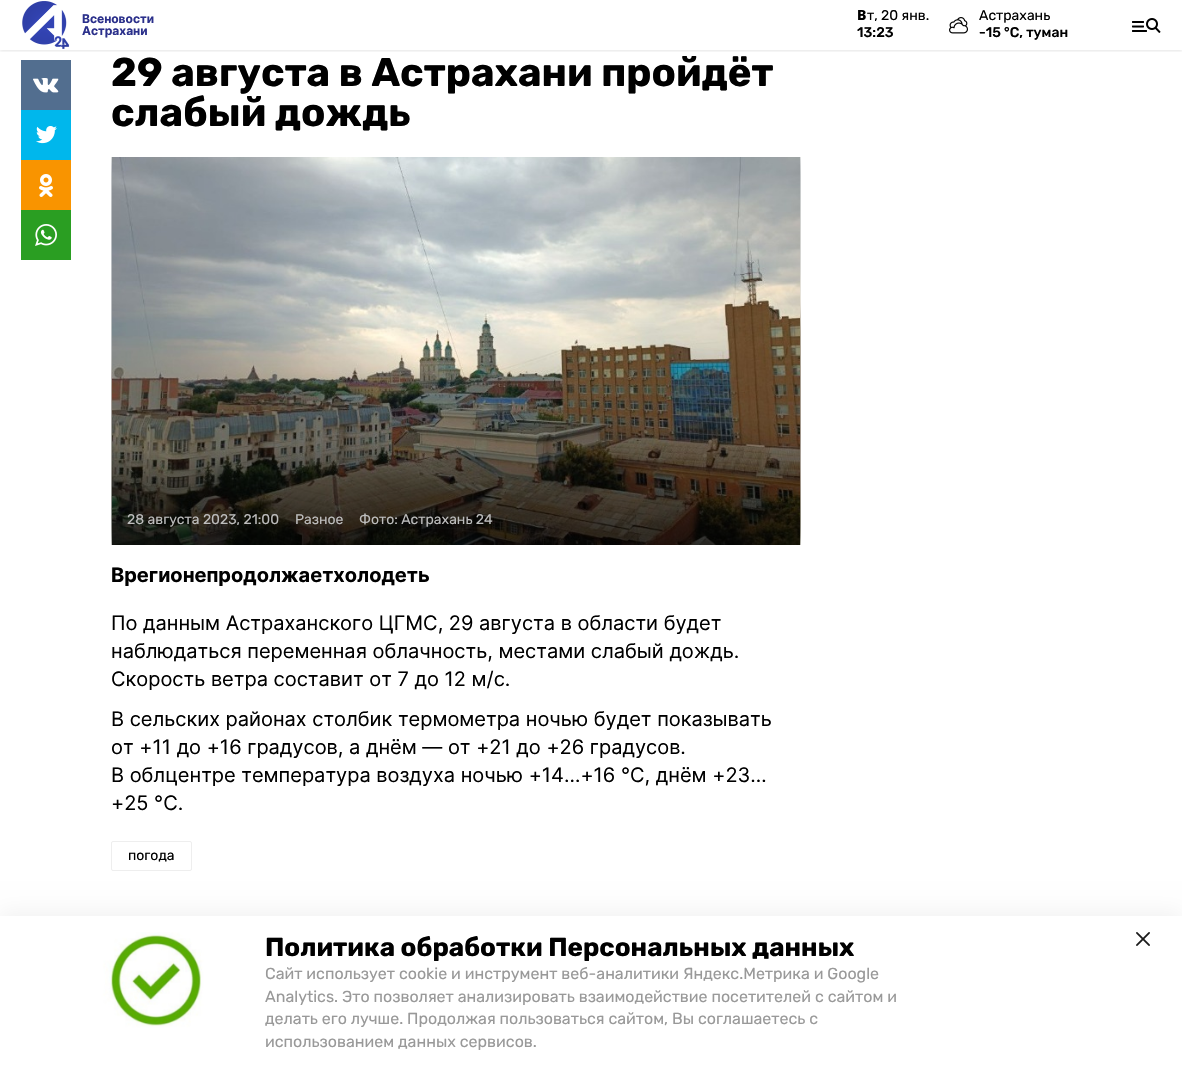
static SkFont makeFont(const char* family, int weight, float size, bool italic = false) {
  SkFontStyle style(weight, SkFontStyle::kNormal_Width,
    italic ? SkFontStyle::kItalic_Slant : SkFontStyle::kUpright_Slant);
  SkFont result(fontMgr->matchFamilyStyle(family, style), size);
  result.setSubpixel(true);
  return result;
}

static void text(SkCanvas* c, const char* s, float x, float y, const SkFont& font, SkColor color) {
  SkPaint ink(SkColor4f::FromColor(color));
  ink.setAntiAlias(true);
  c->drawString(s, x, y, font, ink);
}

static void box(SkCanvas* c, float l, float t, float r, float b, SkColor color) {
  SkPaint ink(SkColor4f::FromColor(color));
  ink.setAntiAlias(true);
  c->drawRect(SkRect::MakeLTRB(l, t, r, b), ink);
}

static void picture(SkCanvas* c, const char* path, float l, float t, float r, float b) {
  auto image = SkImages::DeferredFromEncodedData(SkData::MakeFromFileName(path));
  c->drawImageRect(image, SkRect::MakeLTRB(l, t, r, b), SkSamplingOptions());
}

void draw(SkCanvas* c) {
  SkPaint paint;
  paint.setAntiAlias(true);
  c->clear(0xffffffff);
  c->save();
  c->clipRect(SkRect::MakeLTRB(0, 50, 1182, 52));
  paint.setColor(0x1a000000);
  paint.setMaskFilter(SkMaskFilter::MakeBlur(kNormal_SkBlurStyle, 1.5f));
  c->drawRect(SkRect::MakeLTRB(0, 1, 1182, 51), paint);
  paint.setMaskFilter(nullptr);
  c->restore();
  picture(c, "img_01.png", 22, 1, 70, 49);
  SkFont face1 = makeFont("Inter", 700, 12);
  text(c, "Все новости", 82, 23, face1, 0xff2b308b);
  text(c, "Астрахани", 82, 35, face1, 0xff2b308b);
  SkFont face2 = makeFont("Noto Sans", 800, 14);
  text(c, "В", 857, 20, face2, 0xff000000);
  SkFont face3 = makeFont("Rubik", 400, 14);
  text(c, "т, 20 янв.", 867, 20, face3, 0xff000000);
  SkFont face4 = makeFont("Rubik", 500, 14);
  text(c, "13:23", 857, 37, face4, 0xff000000);
  picture(c, "img_02.png", 949, 17, 968, 34);
  text(c, "Астрахань", 979, 20, face3, 0xff000000);
  text(c, "-15 °С, туман", 979, 37, face4, 0xff000000);
  picture(c, "img_03.png", 1132, 18, 1161, 33);
  box(c, 21, 60, 71, 110, 0xff526e8f);
  picture(c, "img_04.png", 33, 78, 59, 93);
  box(c, 21, 110, 71, 160, 0xff00b7ec);
  picture(c, "img_05.png", 36, 126, 57, 144);
  box(c, 21, 160, 71, 210, 0xfff99400);
  picture(c, "img_06.png", 39, 174, 53, 197);
  box(c, 21, 210, 71, 260, 0xff2a9e22);
  picture(c, "img_07.png", 35, 224, 57, 246);
  SkFont face5 = makeFont("Rubik", 700, 40);
  text(c, "29 августа в Астрахани пройдёт", 111, 86, face5, 0xff000000);
  text(c, "слабый дождь", 111, 126, face5, 0xff000000);
  box(c, 111, 157, 801, 545, 0xfff7f7f7);
  picture(c, "img_08.png", 111, 157, 801, 545);
  picture(c, "img_09.png", 112, 157, 800, 545);
  text(c, "28 августа 2023, 21:00", 127, 524, face3, 0xffbdbdbd);
  text(c, "Разное", 295, 524, face3, 0xffbdbdbd);
  text(c, "Фото: Астрахань 24", 359, 524, face3, 0xffbdbdbd);
  SkFont face6 = makeFont("Inter", 700, 20);
  text(c, "В регионе продолжает холодеть", 111, 582, face6, 0xff000000);
  SkFont face7 = makeFont("Inter", 400, 20);
  text(c, "По данным Астраханского ЦГМС, 29 августа в области будет", 111, 630, face7, 0xff000000);
  text(c, "наблюдаться переменная облачность, местами слабый дождь.", 111, 658, face7, 0xff000000);
  text(c, "Скорость ветра составит от 7 до 12 м/с.", 111, 686, face7, 0xff000000);
  text(c, "В сельских районах столбик термометра ночью будет показывать", 111, 726, face7, 0xff000000);
  text(c, "от +11 до +16 градусов, а днём — от +21 до +26 градусов.", 111, 754, face7, 0xff000000);
  text(c, "В облцентре температура воздуха ночью +14…+16 °C, днём +23…", 111, 782, face7, 0xff000000);
  text(c, "+25 °C.", 111, 810, face7, 0xff000000);
  paint.setStyle(SkPaint::kStroke_Style);
  paint.setStrokeWidth(1);
  paint.setColor(0xffeeeeee);
  c->drawRoundRect(SkRect::MakeLTRB(111.5f, 841.5f, 191.5f, 870.5f), 1.5f, 1.5f, paint);
  text(c, "погода", 128, 860, face3, 0xff000000);
  paint.setStyle(SkPaint::kFill_Style);
  paint.setColor(0x0d000000);
  paint.setMaskFilter(SkMaskFilter::MakeBlur(kNormal_SkBlurStyle, 10));
  c->drawRect(SkRect::MakeLTRB(0, 911, 1182, 1064), paint);
  paint.setMaskFilter(nullptr);
  box(c, 0, 916, 1182, 1069, 0xffffffff);
  picture(c, "img_10.png", 71, 932, 241, 1028);
  SkFont face8 = makeFont("Rubik", 700, 26);
  text(c, "Политика обработки Персональных данных", 265, 956, face8, 0xff000000);
  SkFont face9 = makeFont("Rubik", 400, 16);
  text(c, "Сайт использует cookie и инструмент веб-аналитики Яндекс.Метрика и Google", 265, 979, face9, 0xff999999);
  text(c, "Analytics. Это позволяет анализировать взаимодействие посетителей с сайтом и", 265, 1002, face9, 0xff999999);
  text(c, "делать его лучше. Продолжая пользоваться сайтом, Вы соглашаетесь с", 265, 1024, face9, 0xff999999);
  text(c, "использованием данных сервисов.", 265, 1047, face9, 0xff999999);
  picture(c, "img_11.png", 1136, 932, 1150, 946);
}
